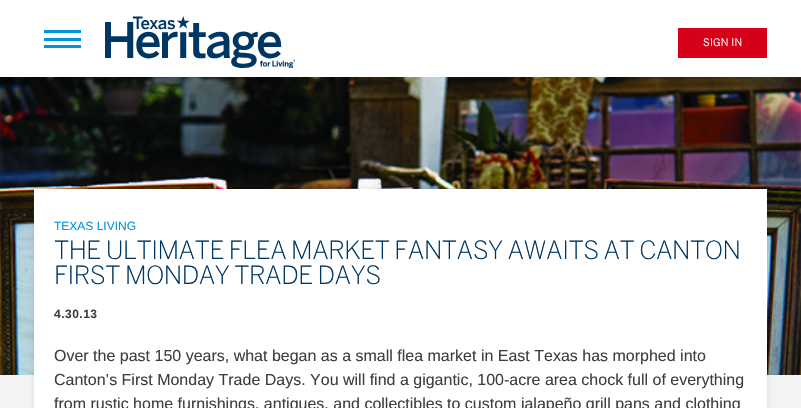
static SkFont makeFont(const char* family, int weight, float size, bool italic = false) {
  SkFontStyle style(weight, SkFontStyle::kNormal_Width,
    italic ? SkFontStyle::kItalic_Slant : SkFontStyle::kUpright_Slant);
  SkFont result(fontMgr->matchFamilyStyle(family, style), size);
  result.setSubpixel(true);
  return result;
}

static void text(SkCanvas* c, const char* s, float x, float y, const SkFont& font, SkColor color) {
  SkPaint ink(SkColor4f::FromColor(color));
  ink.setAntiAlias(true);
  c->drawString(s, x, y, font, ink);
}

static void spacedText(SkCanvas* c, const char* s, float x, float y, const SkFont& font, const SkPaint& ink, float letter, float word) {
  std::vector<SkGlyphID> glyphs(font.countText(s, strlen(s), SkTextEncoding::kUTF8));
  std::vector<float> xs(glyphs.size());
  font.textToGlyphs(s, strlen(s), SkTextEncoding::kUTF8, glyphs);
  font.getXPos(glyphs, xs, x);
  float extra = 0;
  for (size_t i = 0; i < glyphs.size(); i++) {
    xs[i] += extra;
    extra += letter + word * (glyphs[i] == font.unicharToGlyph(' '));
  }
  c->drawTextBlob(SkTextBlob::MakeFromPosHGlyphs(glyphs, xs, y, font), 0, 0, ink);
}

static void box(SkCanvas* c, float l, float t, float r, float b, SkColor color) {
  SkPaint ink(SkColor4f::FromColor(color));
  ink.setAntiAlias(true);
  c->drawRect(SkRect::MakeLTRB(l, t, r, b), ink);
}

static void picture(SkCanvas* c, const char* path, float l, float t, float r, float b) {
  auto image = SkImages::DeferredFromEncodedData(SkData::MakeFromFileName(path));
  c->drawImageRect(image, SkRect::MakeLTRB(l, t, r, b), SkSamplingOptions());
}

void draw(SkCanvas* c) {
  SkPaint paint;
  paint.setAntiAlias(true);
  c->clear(0xfff4f4f4);
  box(c, 0, 0, 801, 77, 0xffffffff);
  box(c, 44, 30, 81, 33, 0xff0095da);
  box(c, 44, 38, 81, 41, 0xff0095da);
  box(c, 44, 45, 81, 48, 0xff0095da);
  picture(c, "img_01.png", 105, 16, 295, 68);
  box(c, 678, 28, 767, 58, 0xffd70019);
  SkFont face1 = makeFont("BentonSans", 700, 10);
  paint.setColor(0xffffffff);
  spacedText(c, "SIGN IN", 703, 46, face1, paint, 0.5f, 0);
  picture(c, "img_02.png", 0, 77, 801, 375);
  paint.setColor(0x1a000000);
  paint.setMaskFilter(SkMaskFilter::MakeBlur(kNormal_SkBlurStyle, 3));
  c->drawRect(SkRect::MakeLTRB(34, 190, 767, 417), paint);
  paint.setMaskFilter(nullptr);
  box(c, 34, 189, 767, 408, 0xffffffff);
  SkFont face2 = makeFont("Liberation Sans", 400, 12);
  text(c, "TEXAS LIVING", 54, 230, face2, 0xff0095da);
  SkFont face3 = makeFont("BentonSans", 300, 25);
  paint.setColor(0xff003663);
  spacedText(c, "THE ULTIMATE FLEA MARKET FANTASY AWAITS AT CANTON", 54, 259, face3, paint, -0.5f, 0);
  spacedText(c, "FIRST MONDAY TRADE DAYS", 54, 284, face3, paint, -0.5f, 0);
  SkFont face4 = makeFont("Liberation Sans", 700, 12);
  paint.setColor(0xff3f3f3f);
  spacedText(c, "4.30.13", 54, 318, face4, paint, 0.5f, 0);
  SkFont face5 = makeFont("Liberation Sans", 400, 16);
  text(c, "Over the past 150 years, what began as a small flea market in East Texas has morphed into", 54, 361, face5, 0xff3f3f3f);
  text(c, "Canton’s First Monday Trade Days. You will find a gigantic, 100-acre area chock full of everything", 54, 385, face5, 0xff3f3f3f);
  text(c, "from rustic home furnishings, antiques, and collectibles to custom jalapeño grill pans and clothing", 54, 409, face5, 0xff3f3f3f);
}
